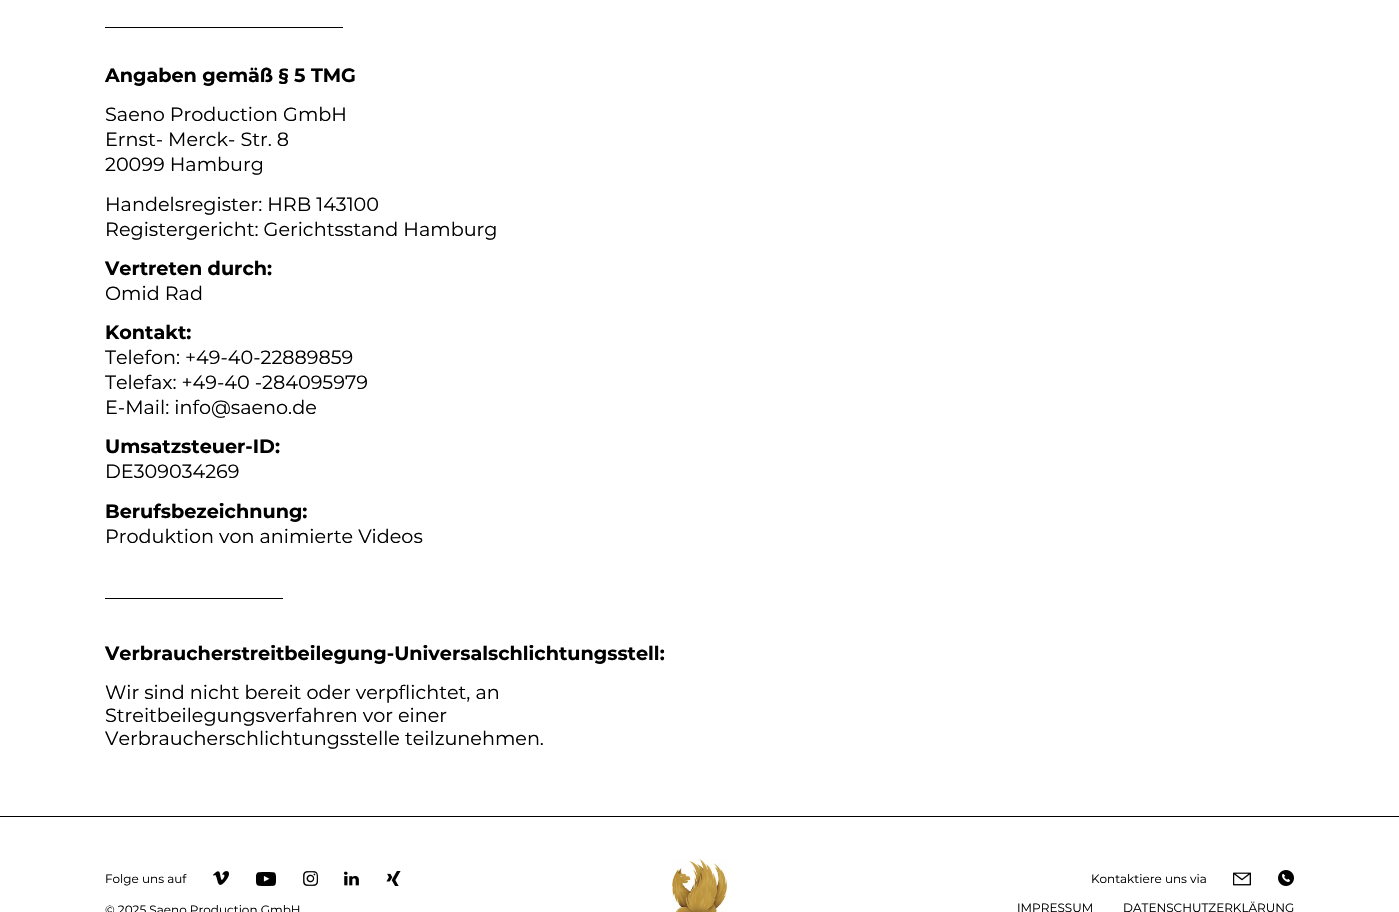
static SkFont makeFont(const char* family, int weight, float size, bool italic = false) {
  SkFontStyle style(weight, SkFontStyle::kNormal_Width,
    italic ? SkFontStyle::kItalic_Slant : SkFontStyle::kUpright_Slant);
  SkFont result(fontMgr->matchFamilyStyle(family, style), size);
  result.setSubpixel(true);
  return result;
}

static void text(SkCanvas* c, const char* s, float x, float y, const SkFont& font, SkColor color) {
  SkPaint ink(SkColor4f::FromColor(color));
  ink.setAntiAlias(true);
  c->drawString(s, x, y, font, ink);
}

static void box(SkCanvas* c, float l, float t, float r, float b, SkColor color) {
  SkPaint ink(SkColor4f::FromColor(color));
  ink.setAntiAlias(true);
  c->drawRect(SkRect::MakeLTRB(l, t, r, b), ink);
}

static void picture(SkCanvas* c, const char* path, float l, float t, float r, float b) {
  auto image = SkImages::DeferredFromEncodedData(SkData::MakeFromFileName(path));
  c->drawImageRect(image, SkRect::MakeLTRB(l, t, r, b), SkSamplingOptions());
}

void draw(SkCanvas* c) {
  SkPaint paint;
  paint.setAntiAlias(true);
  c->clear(0xffffffff);
  box(c, 105, 27, 343, 28, 0xff000000);
  SkFont face1 = makeFont("Montserrat", 100, 19.2f);
  text(c, "Angaben gemäß § 5 TMG", 105, 82, face1, 0xff000000);
  SkFont face2 = makeFont("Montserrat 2", 100, 19.2f);
  text(c, "Saeno Production GmbH", 105, 121, face2, 0xff000000);
  text(c, "Ernst- Merck- Str. 8", 105, 146, face2, 0xff000000);
  text(c, "20099 Hamburg", 105, 171, face2, 0xff000000);
  text(c, "Handelsregister: HRB 143100", 105, 211, face2, 0xff000000);
  text(c, "Registergericht: Gerichtsstand Hamburg", 105, 236, face2, 0xff000000);
  text(c, "Vertreten durch:", 105, 275, face1, 0xff000000);
  text(c, "Omid Rad", 105, 300, face2, 0xff000000);
  text(c, "Kontakt:", 105, 339, face1, 0xff000000);
  text(c, "Telefon: +49-40-22889859", 105, 364, face2, 0xff000000);
  text(c, "Telefax: +49-40 -284095979", 105, 389, face2, 0xff000000);
  text(c, "E-Mail: info@saeno.de", 105, 414, face2, 0xff000000);
  text(c, "Umsatzsteuer-ID:", 105, 453, face1, 0xff000000);
  text(c, "DE309034269", 105, 478, face2, 0xff000000);
  text(c, "Berufsbezeichnung:", 105, 518, face1, 0xff000000);
  text(c, "Produktion von animierte Videos", 105, 543, face2, 0xff000000);
  box(c, 105, 598, 283, 599, 0xff000000);
  text(c, "Verbraucherstreitbeilegung-Universalschlichtungsstell:", 105, 660, face1, 0xff000000);
  text(c, "Wir sind nicht bereit oder verpflichtet, an", 105, 699, face2, 0xff000000);
  text(c, "Streitbeilegungsverfahren vor einer", 105, 722, face2, 0xff000000);
  text(c, "Verbraucherschlichtungsstelle teilzunehmen.", 105, 745, face2, 0xff000000);
  box(c, 0, 816, 1399, 817, 0xff000000);
  picture(c, "img_01.png", 672, 859, 727, 912);
  SkFont face3 = makeFont("Montserrat 2", 100, 12);
  text(c, "Folge uns auf", 105, 883, face3, 0xff000000);
  picture(c, "img_02.png", 213, 871, 229, 885);
  picture(c, "img_03.png", 256, 872, 276, 886);
  picture(c, "img_04.png", 303, 871, 318, 886);
  picture(c, "img_05.png", 344, 871, 359, 886);
  picture(c, "img_06.png", 386, 871, 401, 886);
  text(c, "Kontaktiere uns via", 1091, 883, face3, 0xff000000);
  picture(c, "img_07.png", 1233, 872, 1251, 886);
  picture(c, "img_08.png", 1278, 870, 1294, 886);
  text(c, "© 2025 Saeno Production GmbH", 105, 914, face3, 0xff000000);
  text(c, "IMPRESSUM", 1017, 912, face3, 0xff000000);
  text(c, "DATENSCHUTZERKLÄRUNG", 1123, 912, face3, 0xff000000);
}
